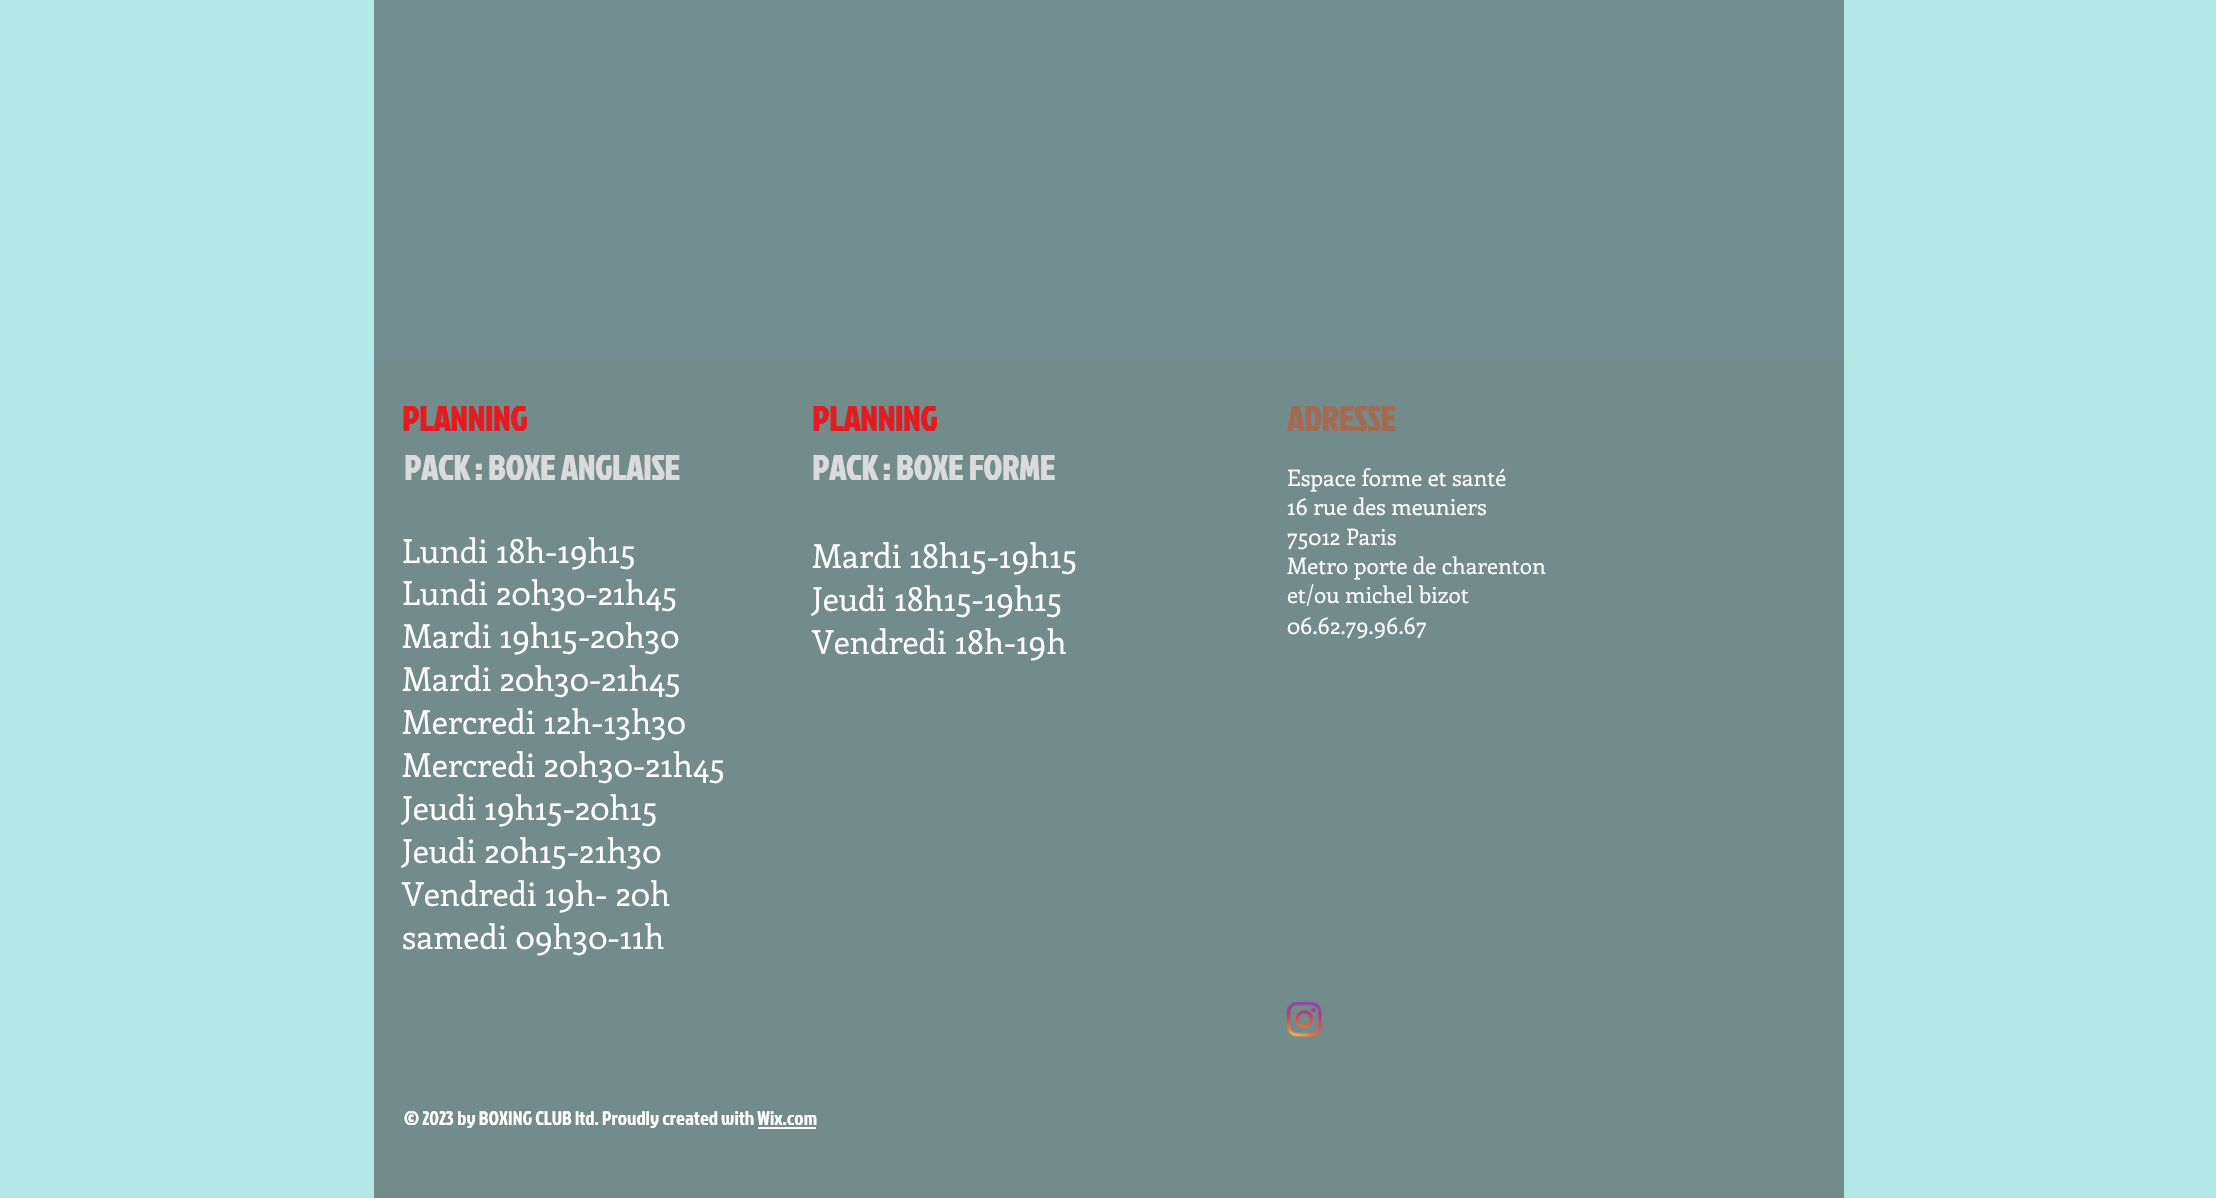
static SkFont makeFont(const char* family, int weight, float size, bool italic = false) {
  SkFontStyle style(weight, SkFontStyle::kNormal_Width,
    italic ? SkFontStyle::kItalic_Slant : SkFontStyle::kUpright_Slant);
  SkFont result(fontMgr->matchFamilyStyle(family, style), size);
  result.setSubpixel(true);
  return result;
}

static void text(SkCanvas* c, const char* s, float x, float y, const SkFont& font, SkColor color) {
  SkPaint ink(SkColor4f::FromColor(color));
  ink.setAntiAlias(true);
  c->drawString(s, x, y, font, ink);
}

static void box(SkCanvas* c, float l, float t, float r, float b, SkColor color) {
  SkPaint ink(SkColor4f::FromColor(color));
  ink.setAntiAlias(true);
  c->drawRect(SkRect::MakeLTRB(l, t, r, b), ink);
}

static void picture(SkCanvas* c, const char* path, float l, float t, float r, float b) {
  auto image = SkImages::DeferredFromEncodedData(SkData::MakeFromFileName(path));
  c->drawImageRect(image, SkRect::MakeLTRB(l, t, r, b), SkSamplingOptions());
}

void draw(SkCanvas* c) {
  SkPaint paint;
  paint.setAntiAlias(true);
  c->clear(0xffb4e8e7);
  box(c, 374, 0, 1844, 359, 0xff728d8d);
  box(c, 374, 359, 1844, 1198, 0xff728b8b);
  SkFont face1 = makeFont("Jockey One", 700, 34.5f);
  text(c, "PLANNING", 402, 431, face1, 0xffe21c21);
  text(c, "PLANNING", 812, 431, face1, 0xffe21c21);
  text(c, "ADRESSE", 1287, 431, face1, 0xffa36b53);
  text(c, "PACK : BOXE ANGLAISE", 404, 480, face1, 0xffdbdbdb);
  text(c, "PACK : BOXE FORME", 812, 480, face1, 0xffdbdbdb);
  SkFont face2 = makeFont("Enriqueta", 400, 22.5f);
  text(c, "Espace forme et santé", 1287, 486, face2, 0xffffffff);
  text(c, "16 rue des meuniers", 1287, 515, face2, 0xffffffff);
  text(c, "75012 Paris", 1287, 545, face2, 0xffffffff);
  text(c, "Metro porte de charenton", 1287, 574, face2, 0xffffffff);
  text(c, "et/ou michel bizot", 1287, 603, face2, 0xffffffff);
  text(c, "06.62.79.96.67", 1287, 634, face2, 0xffffffff);
  SkFont face3 = makeFont("Enriqueta", 400, 33);
  text(c, "Lundi 18h-19h15", 402, 563, face3, 0xffffffff);
  text(c, "Lundi 20h30-21h45", 402, 605, face3, 0xffffffff);
  text(c, "Mardi 19h15-20h30", 402, 648, face3, 0xffffffff);
  text(c, "Mardi 20h30-21h45", 402, 691, face3, 0xffffffff);
  text(c, "Mercredi 12h-13h30", 402, 734, face3, 0xffffffff);
  text(c, "Mercredi 20h30-21h45", 402, 777, face3, 0xffffffff);
  text(c, "Jeudi 19h15-20h15", 402, 820, face3, 0xffffffff);
  text(c, "Jeudi 20h15-21h30", 402, 863, face3, 0xffffffff);
  text(c, "Vendredi 19h- 20h", 402, 906, face3, 0xffffffff);
  text(c, "samedi 09h30-11h", 402, 949, face3, 0xffffffff);
  text(c, "Mardi 18h15-19h15", 812, 568, face3, 0xffffffff);
  text(c, "Jeudi 18h15-19h15", 812, 611, face3, 0xffffffff);
  text(c, "Vendredi 18h-19h", 812, 654, face3, 0xffffffff);
  picture(c, "img_01.png", 1287, 1002, 1322, 1037);
  SkFont face4 = makeFont("Jockey One", 400, 19.5f);
  text(c, "© 2023 by BOXING CLUB ltd. Proudly created with Wix.com", 404, 1125, face4, 0xffffffff);
  box(c, 758, 1127, 816, 1129, 0xffffffff);
}
